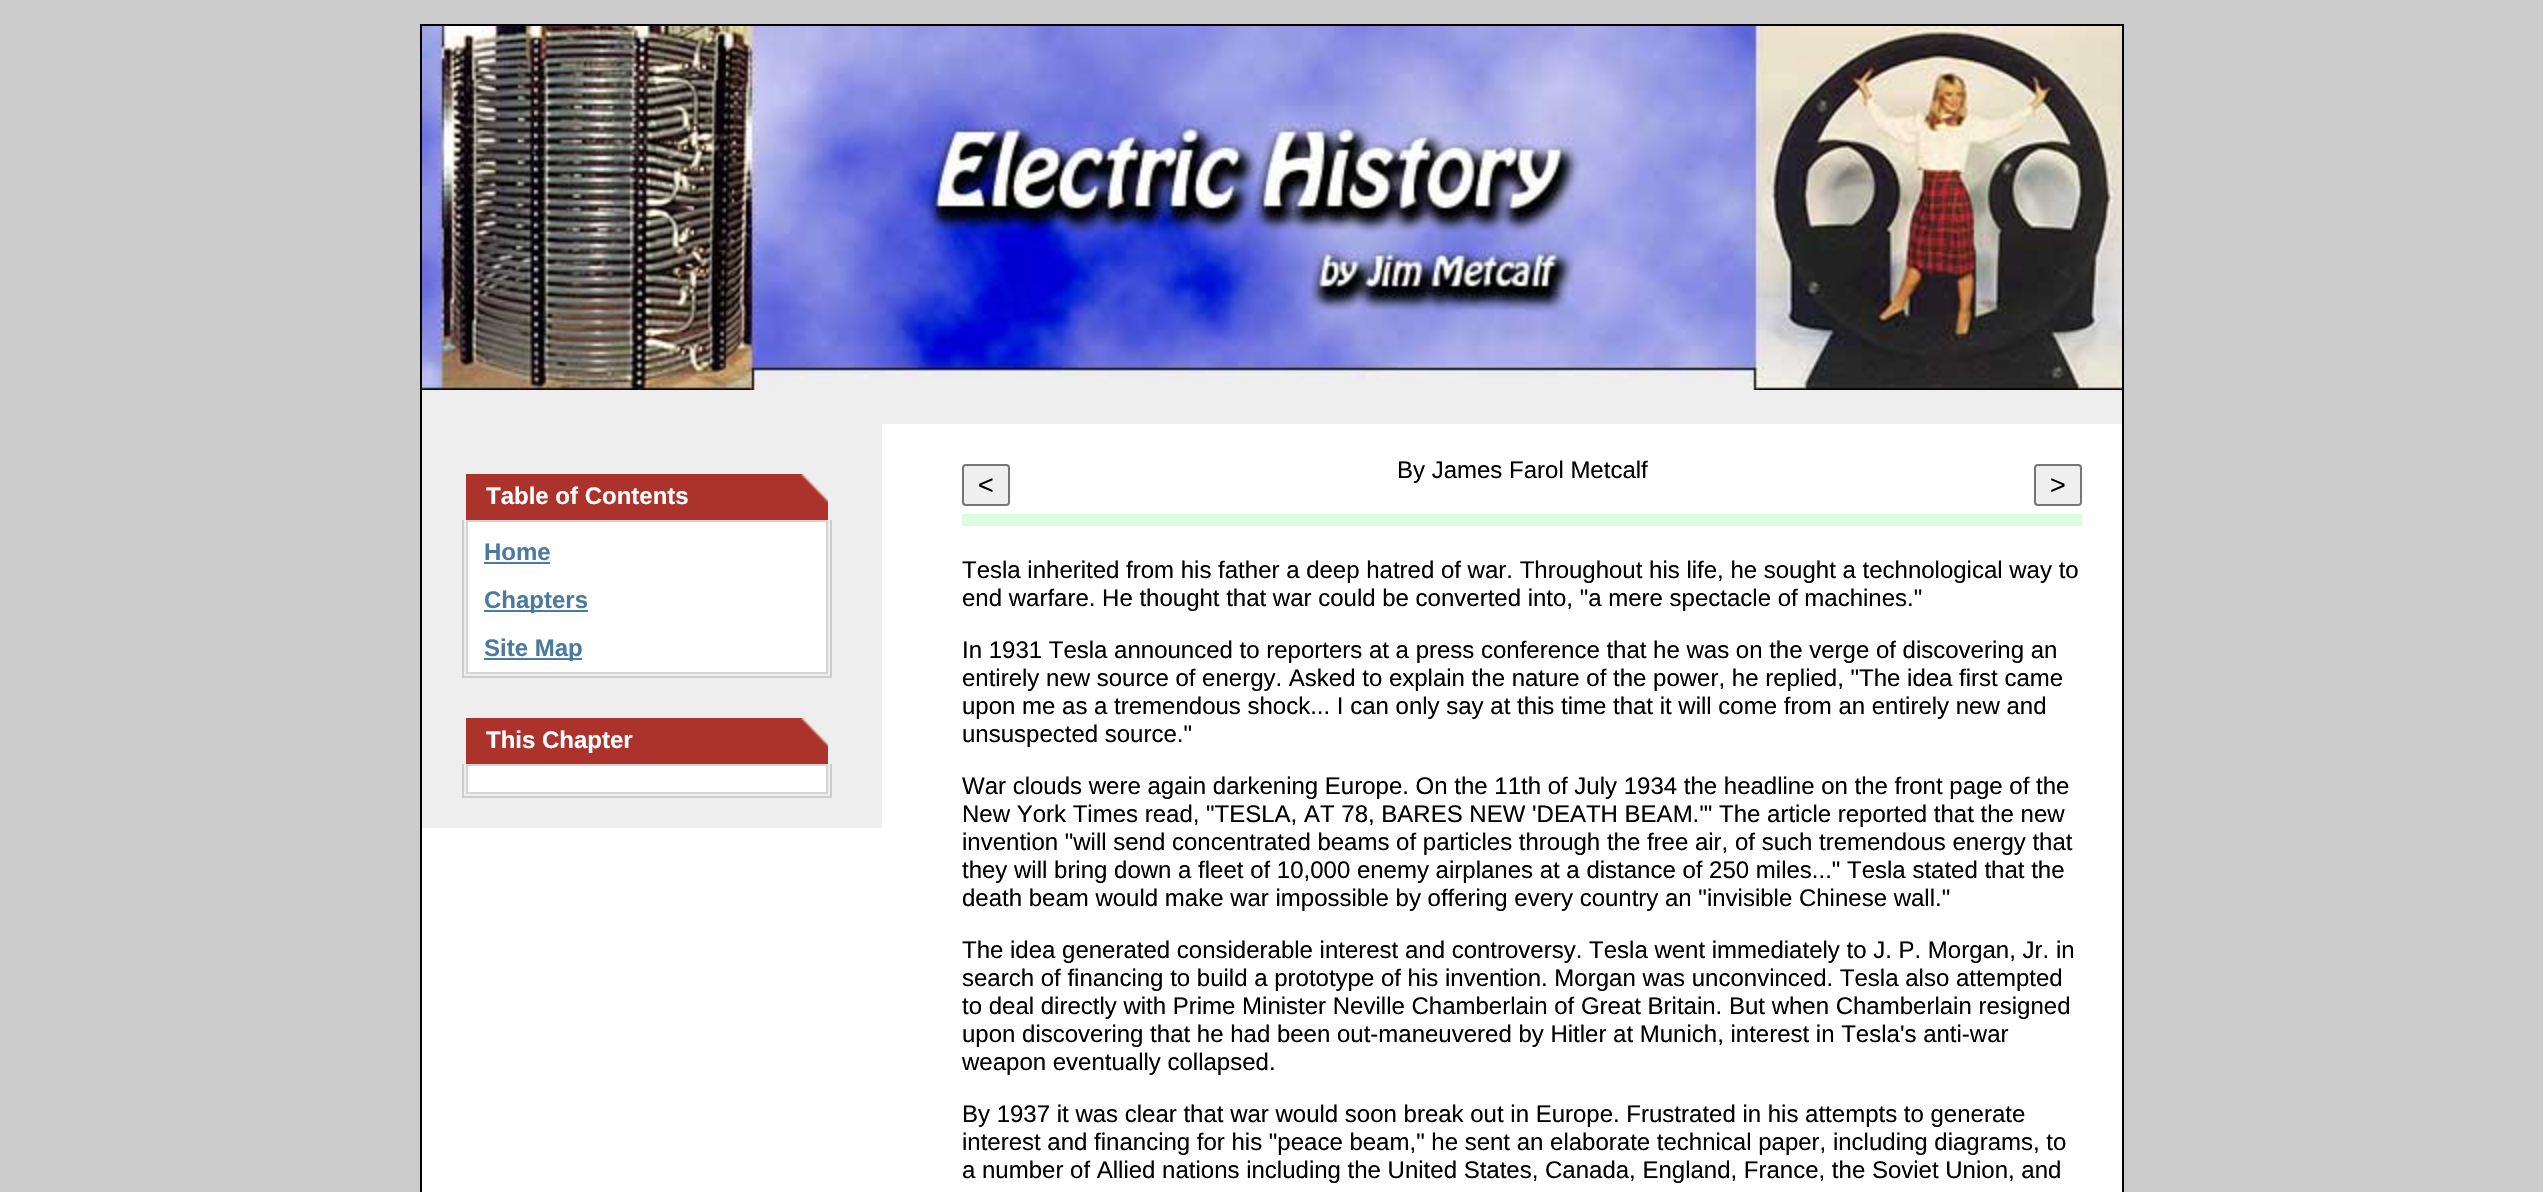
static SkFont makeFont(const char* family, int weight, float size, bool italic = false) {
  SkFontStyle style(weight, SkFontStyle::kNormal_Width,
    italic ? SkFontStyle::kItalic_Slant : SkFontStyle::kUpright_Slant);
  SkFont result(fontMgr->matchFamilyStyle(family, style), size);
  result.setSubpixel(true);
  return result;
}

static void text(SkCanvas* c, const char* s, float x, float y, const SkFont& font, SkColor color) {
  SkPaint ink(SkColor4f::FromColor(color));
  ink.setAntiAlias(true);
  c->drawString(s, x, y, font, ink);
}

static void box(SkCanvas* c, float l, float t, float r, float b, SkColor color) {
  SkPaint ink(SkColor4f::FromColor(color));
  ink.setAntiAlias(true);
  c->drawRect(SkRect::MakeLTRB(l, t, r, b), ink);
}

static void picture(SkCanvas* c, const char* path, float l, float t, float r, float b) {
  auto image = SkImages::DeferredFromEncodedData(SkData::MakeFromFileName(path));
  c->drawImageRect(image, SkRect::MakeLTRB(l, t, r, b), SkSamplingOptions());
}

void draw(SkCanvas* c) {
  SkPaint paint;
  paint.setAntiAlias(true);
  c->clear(0xffcccccc);
  box(c, 422, 424, 2122, 1192, 0xffffffff);
  paint.setStyle(SkPaint::kStroke_Style);
  paint.setStrokeWidth(2);
  paint.setColor(0xff000000);
  c->drawRect(SkRect::MakeLTRB(421, 25, 2123, 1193), paint);
  picture(c, "img_01.png", 422, 26, 2122, 390);
  box(c, 422, 390, 2122, 424, 0xffeeeeee);
  box(c, 422, 424, 882, 828, 0xffeeeeee);
  box(c, 466, 474, 828, 520, 0xffab332b);
  SkFont face1 = makeFont("Liberation Sans", 700, 24);
  text(c, "Table of Contents", 486, 504, face1, 0xffffffff);
  picture(c, "img_02.png", 800, 474, 828, 504);
  box(c, 830, 520, 832, 678, 0xffcccdcf);
  box(c, 462, 676, 832, 678, 0xffcccdcf);
  box(c, 462, 520, 464, 678, 0xffcccdcf);
  paint.setStyle(SkPaint::kFill_Style);
  paint.setColor(0xffffffff);
  c->drawRect(SkRect::MakeLTRB(467, 521, 827, 673), paint);
  paint.setStyle(SkPaint::kStroke_Style);
  paint.setColor(0xffd3d4d6);
  c->drawRect(SkRect::MakeLTRB(467, 521, 827, 673), paint);
  text(c, "Home", 484, 560, face1, 0xff4c7a9e);
  box(c, 484, 562, 550, 564, 0xff4c7a9e);
  box(c, 484, 610, 588, 612, 0xff4c7a9e);
  text(c, "Chapters", 484, 608, face1, 0xff4c7a9e);
  box(c, 484, 658, 582, 660, 0xff4c7a9e);
  text(c, "Site Map", 484, 656, face1, 0xff4c7a9e);
  box(c, 466, 718, 828, 764, 0xffab332b);
  text(c, "This Chapter", 486, 748, face1, 0xffffffff);
  picture(c, "img_02.png", 800, 718, 828, 748);
  box(c, 830, 764, 832, 798, 0xffcccdcf);
  box(c, 462, 796, 832, 798, 0xffcccdcf);
  box(c, 462, 764, 464, 798, 0xffcccdcf);
  paint.setStyle(SkPaint::kFill_Style);
  paint.setColor(0xffffffff);
  c->drawRect(SkRect::MakeLTRB(467, 765, 827, 793), paint);
  paint.setStyle(SkPaint::kStroke_Style);
  paint.setColor(0xffd3d4d6);
  c->drawRect(SkRect::MakeLTRB(467, 765, 827, 793), paint);
  SkFont face2 = makeFont("Liberation Sans", 400, 24);
  text(c, "By James Farol Metcalf", 1397, 478, face2, 0xff000000);
  paint.setStyle(SkPaint::kFill_Style);
  paint.setColor(0xffefefef);
  c->drawRoundRect(SkRect::MakeLTRB(963, 465, 1009, 505), 3, 3, paint);
  paint.setStyle(SkPaint::kStroke_Style);
  paint.setColor(0xff767676);
  c->drawRoundRect(SkRect::MakeLTRB(963, 465, 1009, 505), 3, 3, paint);
  SkFont face3 = makeFont("Liberation Sans", 400, 27);
  text(c, "<", 978, 494, face3, 0xff000000);
  paint.setStyle(SkPaint::kFill_Style);
  paint.setColor(0xffefefef);
  c->drawRoundRect(SkRect::MakeLTRB(2035, 465, 2081, 505), 3, 3, paint);
  paint.setStyle(SkPaint::kStroke_Style);
  paint.setColor(0xff767676);
  c->drawRoundRect(SkRect::MakeLTRB(2035, 465, 2081, 505), 3, 3, paint);
  text(c, ">", 2050, 494, face3, 0xff000000);
  box(c, 962, 514, 2082, 526, 0xffddffdd);
  text(c, "Tesla inherited from his father a deep hatred of war. Throughout his life, he sought a technological way to", 962, 578, face2, 0xff000000);
  text(c, "end warfare. He thought that war could be converted into, \"a mere spectacle of machines.\"", 962, 606, face2, 0xff000000);
  text(c, "In 1931 Tesla announced to reporters at a press conference that he was on the verge of discovering an", 962, 658, face2, 0xff000000);
  text(c, "entirely new source of energy. Asked to explain the nature of the power, he replied, \"The idea first came", 962, 686, face2, 0xff000000);
  text(c, "upon me as a tremendous shock... I can only say at this time that it will come from an entirely new and", 962, 714, face2, 0xff000000);
  text(c, "unsuspected source.\"", 962, 742, face2, 0xff000000);
  text(c, "War clouds were again darkening Europe. On the 11th of July 1934 the headline on the front page of the", 962, 794, face2, 0xff000000);
  text(c, "New York Times read, \"TESLA, AT 78, BARES NEW 'DEATH BEAM.'\" The article reported that the new", 962, 822, face2, 0xff000000);
  text(c, "invention \"will send concentrated beams of particles through the free air, of such tremendous energy that", 962, 850, face2, 0xff000000);
  text(c, "they will bring down a fleet of 10,000 enemy airplanes at a distance of 250 miles...\" Tesla stated that the", 962, 878, face2, 0xff000000);
  text(c, "death beam would make war impossible by offering every country an \"invisible Chinese wall.\"", 962, 906, face2, 0xff000000);
  text(c, "The idea generated considerable interest and controversy. Tesla went immediately to J. P. Morgan, Jr. in", 962, 958, face2, 0xff000000);
  text(c, "search of financing to build a prototype of his invention. Morgan was unconvinced. Tesla also attempted", 962, 986, face2, 0xff000000);
  text(c, "to deal directly with Prime Minister Neville Chamberlain of Great Britain. But when Chamberlain resigned", 962, 1014, face2, 0xff000000);
  text(c, "upon discovering that he had been out-maneuvered by Hitler at Munich, interest in Tesla's anti-war", 962, 1042, face2, 0xff000000);
  text(c, "weapon eventually collapsed.", 962, 1070, face2, 0xff000000);
  text(c, "By 1937 it was clear that war would soon break out in Europe. Frustrated in his attempts to generate", 962, 1122, face2, 0xff000000);
  text(c, "interest and financing for his \"peace beam,\" he sent an elaborate technical paper, including diagrams, to", 962, 1150, face2, 0xff000000);
  text(c, "a number of Allied nations including the United States, Canada, England, France, the Soviet Union, and", 962, 1178, face2, 0xff000000);
}
